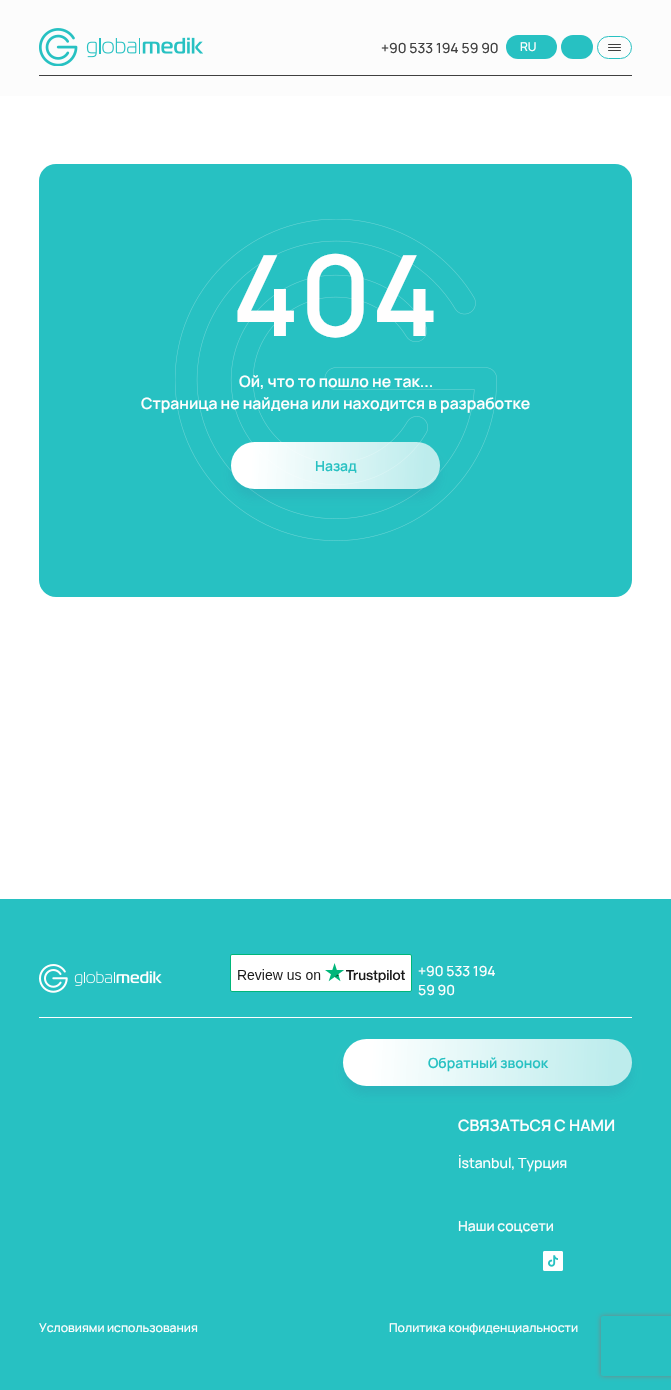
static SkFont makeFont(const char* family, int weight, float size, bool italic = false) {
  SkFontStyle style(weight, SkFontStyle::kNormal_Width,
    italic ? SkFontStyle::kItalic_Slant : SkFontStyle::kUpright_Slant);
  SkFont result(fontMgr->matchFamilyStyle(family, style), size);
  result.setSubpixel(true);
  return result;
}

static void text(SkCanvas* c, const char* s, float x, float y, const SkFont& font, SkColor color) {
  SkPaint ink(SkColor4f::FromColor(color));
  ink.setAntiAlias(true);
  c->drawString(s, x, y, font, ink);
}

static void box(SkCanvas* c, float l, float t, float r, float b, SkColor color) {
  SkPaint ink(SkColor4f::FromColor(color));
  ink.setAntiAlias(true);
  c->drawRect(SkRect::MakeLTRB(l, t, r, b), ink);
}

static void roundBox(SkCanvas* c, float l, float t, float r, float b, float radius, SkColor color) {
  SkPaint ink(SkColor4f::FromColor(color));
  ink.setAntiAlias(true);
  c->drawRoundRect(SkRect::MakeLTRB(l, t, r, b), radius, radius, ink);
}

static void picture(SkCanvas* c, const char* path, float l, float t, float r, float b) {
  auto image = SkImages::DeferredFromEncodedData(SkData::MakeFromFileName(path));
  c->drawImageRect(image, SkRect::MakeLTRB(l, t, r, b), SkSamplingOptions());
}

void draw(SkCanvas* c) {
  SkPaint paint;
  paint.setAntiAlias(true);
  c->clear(0xffffffff);
  box(c, 0, 0, 671, 96, 0xfffcfcfc);
  box(c, 39, 75, 632, 76, 0xff404040);
  picture(c, "img_01.png", 39, 28, 203, 66);
  SkFont face1 = makeFont("Manrope", 500, 14);
  text(c, "+90 533 194 59 90", 381, 53, face1, 0xff404040);
  roundBox(c, 506, 35, 557, 59, 12, 0xff27c1c2);
  SkFont face2 = makeFont("Manrope", 500, 12.25f);
  text(c, "RU", 520, 51, face2, 0xfffffefe);
  roundBox(c, 561, 35, 593, 59, 12, 0xff27c1c2);
  paint.setStyle(SkPaint::kStroke_Style);
  paint.setStrokeWidth(1);
  paint.setColor(0xff27c1c2);
  c->drawRoundRect(SkRect::MakeLTRB(597.5f, 36.5f, 631.5f, 58.5f), 11, 11, paint);
  roundBox(c, 608, 44, 621, 45, 0.5f, 0xff404040);
  roundBox(c, 608, 47, 621, 48, 0.5f, 0xff404040);
  roundBox(c, 608, 50, 621, 51, 0.5f, 0xff404040);
  roundBox(c, 39, 164, 632, 597, 17, 0xff27c1c2);
  picture(c, "img_02.png", 175, 219, 497, 541);
  SkFont face3 = makeFont("Manrope", 600, 112);
  text(c, "404", 232, 336, face3, 0xfffffefe);
  SkFont face4 = makeFont("Manrope", 600, 15.75f);
  text(c, "Ой, что то пошло не так...", 239, 387, face4, 0xfffffefe);
  text(c, "Страница не найдена или находится в разработке", 141, 409, face4, 0xfffffefe);
  c->save();
  c->clipPath(SkPathBuilder(SkPathFillType::kEvenOdd).moveTo(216, 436).lineTo(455, 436).lineTo(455, 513).lineTo(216, 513).close().moveTo(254.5f, 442).lineTo(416.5f, 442).cubicTo(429.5f, 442, 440, 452.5f, 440, 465.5f).cubicTo(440, 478.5f, 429.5f, 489, 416.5f, 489).lineTo(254.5f, 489).cubicTo(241.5f, 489, 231, 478.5f, 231, 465.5f).cubicTo(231, 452.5f, 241.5f, 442, 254.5f, 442).close().detach(), true);
  paint.setStyle(SkPaint::kFill_Style);
  paint.setColor(0x26377197);
  paint.setMaskFilter(SkMaskFilter::MakeBlur(kNormal_SkBlurStyle, 4.5f));
  c->drawRoundRect(SkRect::MakeLTRB(231, 451, 440, 498), 23.5f, 23.5f, paint);
  paint.setMaskFilter(nullptr);
  c->restore();
  {
    const SkColor colors[] = {0xffffffff, 0xb0ffffff};
    const float stops[] = {0.09f, 0.93f};
    const SkPoint ends[] = {{230, 460}, {441, 471}};
    paint.setShader(SkGradientShader::MakeLinear(ends, colors, stops, 2, SkTileMode::kClamp));
    paint.setAlpha(255);
  }
  c->drawRoundRect(SkRect::MakeLTRB(231, 442, 440, 489), 23.5f, 23.5f, paint);
  SkFont face5 = makeFont("Manrope", 600, 14);
  text(c, "Назад", 315, 471, face5, 0xff27c1c2);
  box(c, 0, 899, 671, 1390, 0xff27c1c2);
  box(c, 39, 1017, 632, 1018, 0xfffffefe);
  picture(c, "img_03.png", 39, 964, 162, 993);
  picture(c, "img_04.png", 230, 954, 412, 992);
  text(c, "+90 533 194", 418, 976, face1, 0xfffffefe);
  text(c, "59 90", 418, 995, face1, 0xfffffefe);
  c->save();
  c->clipPath(SkPathBuilder(SkPathFillType::kEvenOdd).moveTo(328, 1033).lineTo(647, 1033).lineTo(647, 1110).lineTo(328, 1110).close().moveTo(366.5f, 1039).lineTo(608.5f, 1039).cubicTo(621.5f, 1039, 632, 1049.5f, 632, 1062.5f).cubicTo(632, 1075.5f, 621.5f, 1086, 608.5f, 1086).lineTo(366.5f, 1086).cubicTo(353.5f, 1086, 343, 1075.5f, 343, 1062.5f).cubicTo(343, 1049.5f, 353.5f, 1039, 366.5f, 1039).close().detach(), true);
  paint.setShader(nullptr);
  paint.setColor(0x26377197);
  paint.setMaskFilter(SkMaskFilter::MakeBlur(kNormal_SkBlurStyle, 4.5f));
  c->drawRoundRect(SkRect::MakeLTRB(343, 1048, 632, 1095), 23.5f, 23.5f, paint);
  paint.setMaskFilter(nullptr);
  c->restore();
  {
    const SkColor colors[] = {0xffffffff, 0xb0ffffff};
    const float stops[] = {0.09f, 0.93f};
    const SkPoint ends[] = {{342, 1055}, {633, 1070}};
    paint.setShader(SkGradientShader::MakeLinear(ends, colors, stops, 2, SkTileMode::kClamp));
    paint.setAlpha(255);
  }
  c->drawRoundRect(SkRect::MakeLTRB(343, 1039, 632, 1086), 23.5f, 23.5f, paint);
  text(c, "Обратный звонок", 428, 1068, face5, 0xff27c1c2);
  text(c, "СВЯЗАТЬСЯ С НАМИ", 458, 1131, face4, 0xfffffefe);
  text(c, "İstanbul, Турция", 458, 1168, face1, 0xfffffefe);
  text(c, "Наши соцсети", 458, 1231, face1, 0xfffffefe);
  picture(c, "img_05.png", 543, 1251, 563, 1271);
  text(c, "Условиями использования", 39, 1332, face2, 0xfffffefe);
  text(c, "Политика конфиденциальности", 389, 1332, face2, 0xfffffefe);
  c->save();
  c->clipPath(SkPathBuilder(SkPathFillType::kEvenOdd).moveTo(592, 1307).lineTo(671, 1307).lineTo(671, 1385).lineTo(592, 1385).close().moveTo(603, 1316).lineTo(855, 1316).cubicTo(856, 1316, 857, 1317, 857, 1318).lineTo(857, 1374).cubicTo(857, 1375, 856, 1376, 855, 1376).lineTo(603, 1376).cubicTo(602, 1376, 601, 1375, 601, 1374).lineTo(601, 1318).cubicTo(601, 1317, 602, 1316, 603, 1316).close().detach(), true);
  paint.setShader(nullptr);
  paint.setColor(0xff808080);
  paint.setMaskFilter(SkMaskFilter::MakeBlur(kNormal_SkBlurStyle, 2.5f));
  c->drawRoundRect(SkRect::MakeLTRB(601, 1316, 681, 1376), 2, 2, paint);
  paint.setMaskFilter(nullptr);
  c->restore();
}
